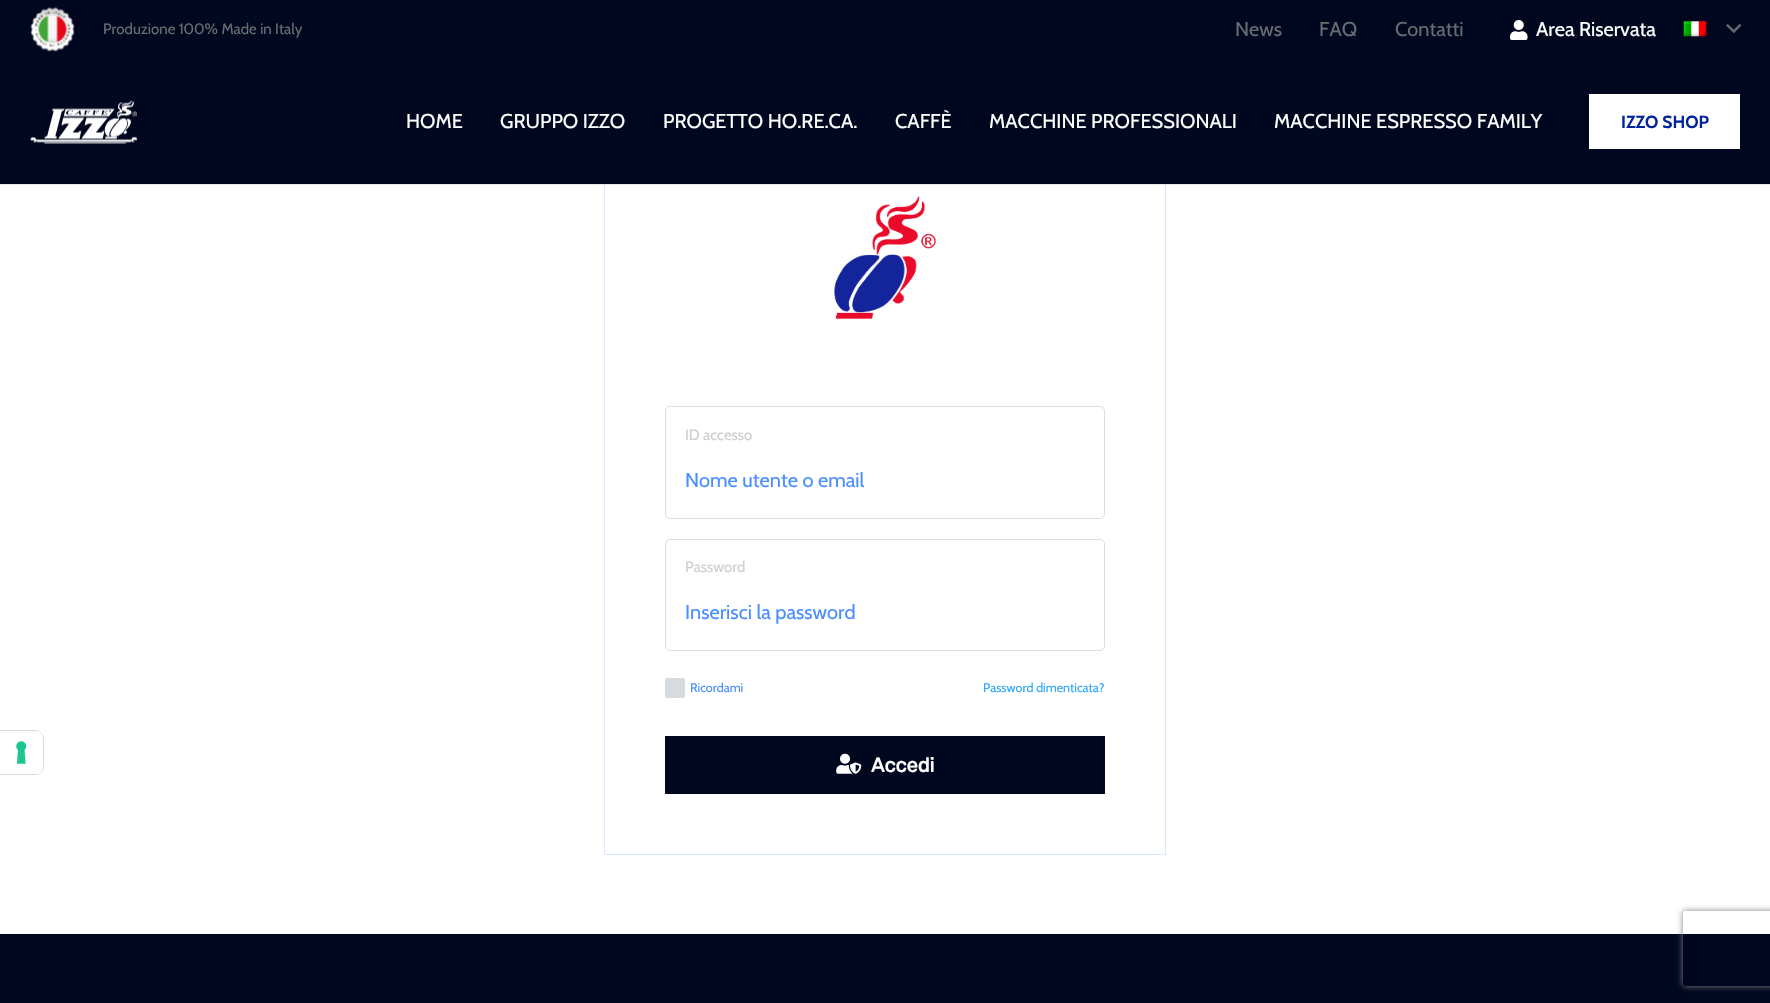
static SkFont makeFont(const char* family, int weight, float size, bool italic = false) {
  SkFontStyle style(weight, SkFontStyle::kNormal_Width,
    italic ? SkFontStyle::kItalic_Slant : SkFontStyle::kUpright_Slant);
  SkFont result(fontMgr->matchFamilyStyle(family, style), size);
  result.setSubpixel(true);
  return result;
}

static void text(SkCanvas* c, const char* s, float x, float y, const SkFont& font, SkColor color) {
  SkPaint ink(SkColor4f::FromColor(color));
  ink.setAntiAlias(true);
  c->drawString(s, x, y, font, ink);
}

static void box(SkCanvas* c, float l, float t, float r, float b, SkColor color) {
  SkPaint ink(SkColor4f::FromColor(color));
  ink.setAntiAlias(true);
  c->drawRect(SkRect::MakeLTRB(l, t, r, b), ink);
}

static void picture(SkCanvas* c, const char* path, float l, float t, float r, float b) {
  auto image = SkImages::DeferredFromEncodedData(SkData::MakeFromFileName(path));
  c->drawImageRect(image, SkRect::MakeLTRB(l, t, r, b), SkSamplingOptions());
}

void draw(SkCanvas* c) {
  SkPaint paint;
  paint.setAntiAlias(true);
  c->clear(0xffffffff);
  paint.setStyle(SkPaint::kStroke_Style);
  paint.setStrokeWidth(1);
  paint.setColor(0xffd9d9d9);
  c->drawPath(SkPathBuilder().moveTo(-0.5f, 730.5f).lineTo(35, 730.5f).cubicTo(39.5f, 730.5f, 43.5f, 734.5f, 43.5f, 739).lineTo(43.5f, 766).cubicTo(43.5f, 770.5f, 39.5f, 774.5f, 35, 774.5f).lineTo(-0.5f, 774.5f).close().detach(), paint);
  paint.setStyle(SkPaint::kFill_Style);
  paint.setColor(0xffffffff);
  c->drawPath(SkPathBuilder().moveTo(0, 731).lineTo(35, 731).cubicTo(39.5f, 731, 43, 734.5f, 43, 739).lineTo(43, 766).cubicTo(43, 770.5f, 39.5f, 774, 35, 774).lineTo(0, 774).close().detach(), paint);
  picture(c, "img_01.png", 16, 741, 27, 764);
  paint.setStyle(SkPaint::kStroke_Style);
  paint.setColor(0xffdbe8ff);
  c->drawRect(SkRect::MakeLTRB(604.5f, 123.5f, 1165.5f, 854.5f), paint);
  box(c, 0, 0, 1770, 184, 0xff020720);
  picture(c, "img_02.png", 30, 7, 75, 52);
  SkFont face1 = makeFont("Cabin", 400, 15);
  text(c, "Produzione 100% Made in Italy", 103, 34, face1, 0xff666d70);
  SkFont face2 = makeFont("Cabin", 400, 20);
  text(c, "News", 1235, 36, face2, 0xff666d70);
  text(c, "FAQ", 1319, 36, face2, 0xff666d70);
  text(c, "Contatti", 1395, 36, face2, 0xff666d70);
  picture(c, "img_03.png", 1510, 20, 1528, 40);
  text(c, "Area Riservata", 1536, 36, face2, 0xffffffff);
  picture(c, "img_04.png", 1683, 21, 1707, 37);
  picture(c, "img_05.png", 1726, 24, 1742, 33);
  box(c, 0, 184, 1770, 185, 0x14000000);
  picture(c, "img_06.png", 30, 100, 137, 144);
  text(c, "HOME", 406, 128, face2, 0xffffffff);
  text(c, "GRUPPO IZZO", 500, 128, face2, 0xffffffff);
  text(c, "PROGETTO HO.RE.CA.", 663, 128, face2, 0xffffffff);
  text(c, "CAFFÈ", 895, 128, face2, 0xffffffff);
  text(c, "MACCHINE PROFESSIONALI", 989, 128, face2, 0xffffffff);
  text(c, "MACCHINE ESPRESSO FAMILY", 1274, 128, face2, 0xffffffff);
  box(c, 1589, 94, 1740, 149, 0xffffffff);
  SkFont face3 = makeFont("Cabin", 700, 17.5f);
  text(c, "IZZO SHOP", 1621, 128, face3, 0xff00249c);
  picture(c, "img_07.png", 834, 196, 937, 320);
  paint.setColor(0xffdddddd);
  c->drawRoundRect(SkRect::MakeLTRB(665.5f, 406.5f, 1104.5f, 518.5f), 4.5f, 4.5f, paint);
  text(c, "ID accesso", 685, 440, face1, 0xffcecfd1);
  text(c, "Nome utente o email", 685, 487, face2, 0xff4a8eff);
  c->drawRoundRect(SkRect::MakeLTRB(665.5f, 539.5f, 1104.5f, 650.5f), 4.5f, 4.5f, paint);
  text(c, "Password", 685, 572, face1, 0xffcecfd1);
  text(c, "Inserisci la password", 685, 619, face2, 0xff4a8eff);
  paint.setStyle(SkPaint::kFill_Style);
  paint.setColor(0xffd5dbde);
  c->drawRoundRect(SkRect::MakeLTRB(665.5f, 678.5f, 684.5f, 697.5f), 1.5f, 1.5f, paint);
  paint.setStyle(SkPaint::kStroke_Style);
  c->drawRoundRect(SkRect::MakeLTRB(665.5f, 678.5f, 684.5f, 697.5f), 1.5f, 1.5f, paint);
  SkFont face4 = makeFont("Cabin", 400, 12.5f);
  text(c, "Ricordami", 690, 692, face4, 0xff4a8eff);
  text(c, "Password dimenticata?", 983, 692, face4, 0xff2ca8ff);
  box(c, 665, 736, 1105, 794, 0xff020720);
  picture(c, "img_08.png", 836, 753, 862, 774);
  SkFont face5 = makeFont("Rubik", 700, 20);
  text(c, "Accedi", 871, 772, face5, 0xffffffff);
  box(c, 0, 934, 1770, 1003, 0xff020720);
  c->save();
  c->clipPath(SkPathBuilder(SkPathFillType::kEvenOdd).moveTo(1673, 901).lineTo(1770, 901).lineTo(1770, 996).lineTo(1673, 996).close().moveTo(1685.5f, 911).lineTo(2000.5f, 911).cubicTo(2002, 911, 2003, 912, 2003, 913.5f).lineTo(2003, 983.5f).cubicTo(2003, 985, 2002, 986, 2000.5f, 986).lineTo(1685.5f, 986).cubicTo(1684, 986, 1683, 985, 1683, 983.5f).lineTo(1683, 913.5f).cubicTo(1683, 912, 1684, 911, 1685.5f, 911).close().detach(), true);
  paint.setStyle(SkPaint::kFill_Style);
  paint.setColor(0xff808080);
  paint.setMaskFilter(SkMaskFilter::MakeBlur(kNormal_SkBlurStyle, 3));
  c->drawRoundRect(SkRect::MakeLTRB(1683, 911, 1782, 986), 2.5f, 2.5f, paint);
  paint.setMaskFilter(nullptr);
  c->restore();
}
